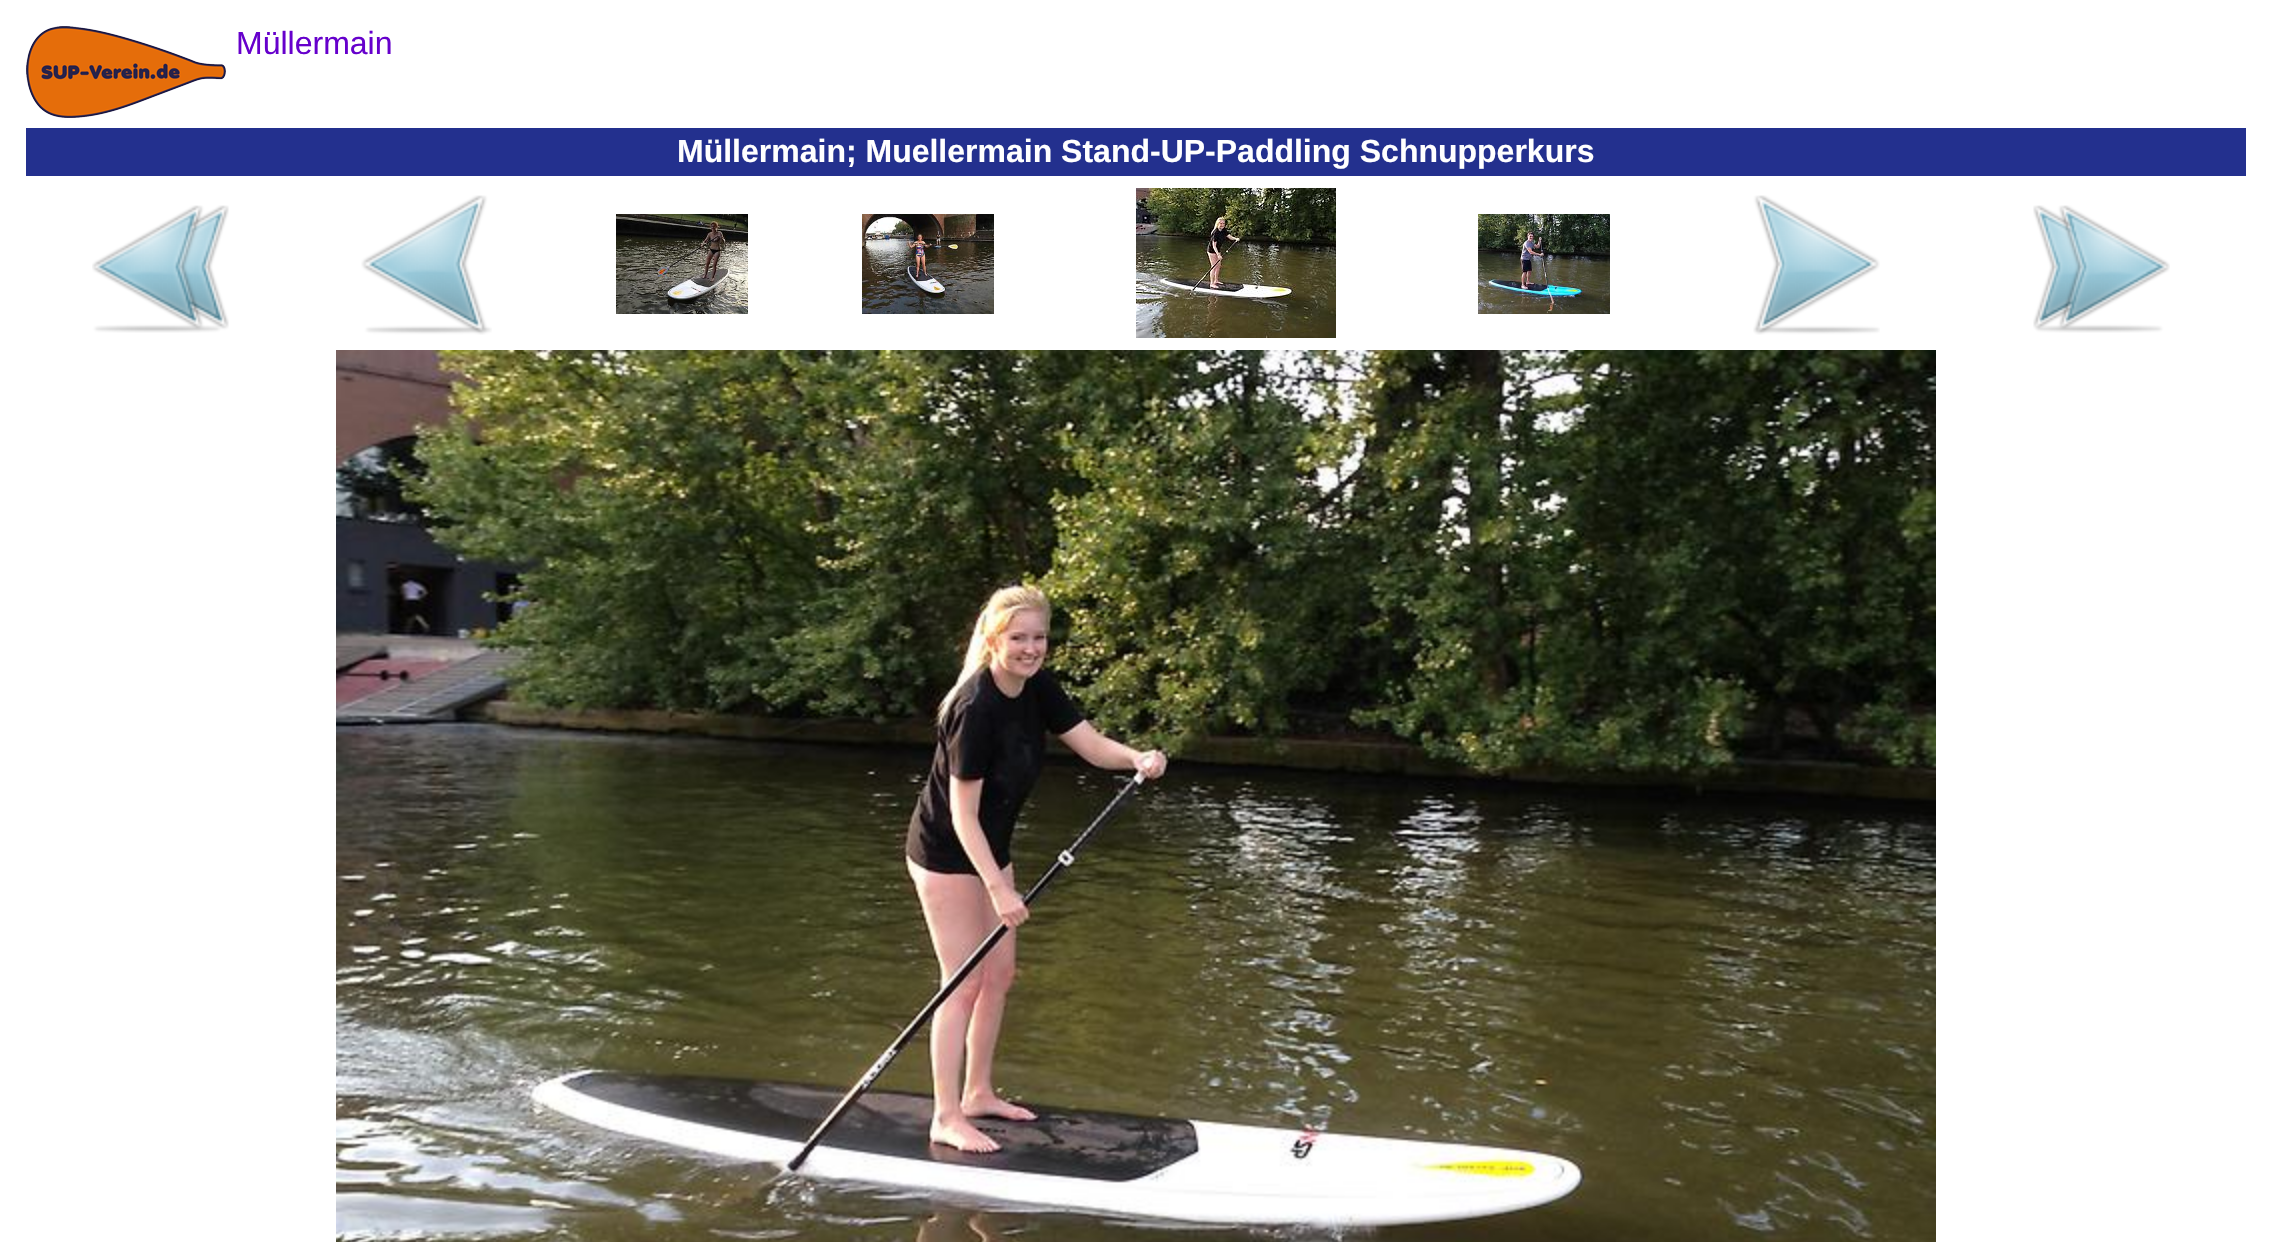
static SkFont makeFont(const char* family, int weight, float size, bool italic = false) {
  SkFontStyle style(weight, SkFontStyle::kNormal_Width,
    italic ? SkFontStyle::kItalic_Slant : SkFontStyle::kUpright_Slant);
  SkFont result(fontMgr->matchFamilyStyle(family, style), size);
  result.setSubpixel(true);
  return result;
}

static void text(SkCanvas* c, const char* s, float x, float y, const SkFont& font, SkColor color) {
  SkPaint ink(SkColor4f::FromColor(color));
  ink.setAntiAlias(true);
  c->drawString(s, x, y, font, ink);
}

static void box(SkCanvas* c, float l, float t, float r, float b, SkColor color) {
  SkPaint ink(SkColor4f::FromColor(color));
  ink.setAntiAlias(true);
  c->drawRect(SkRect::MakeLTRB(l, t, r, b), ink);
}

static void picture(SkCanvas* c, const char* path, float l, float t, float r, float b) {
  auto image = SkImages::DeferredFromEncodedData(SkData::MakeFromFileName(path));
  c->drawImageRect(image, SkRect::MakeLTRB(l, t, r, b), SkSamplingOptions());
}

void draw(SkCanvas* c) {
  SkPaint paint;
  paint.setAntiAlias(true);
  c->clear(0xffffffff);
  picture(c, "img_01.png", 26, 26, 226, 118);
  SkFont face1 = makeFont("Liberation Sans", 400, 32);
  text(c, "Müllermain", 236, 54, face1, 0xff6600cc);
  box(c, 26, 128, 2246, 176, 0xff23308e);
  SkFont face2 = makeFont("Liberation Sans", 700, 32);
  text(c, "Müllermain; Muellermain Stand-UP-Paddling Schnupperkurs", 677, 162, face2, 0xffffffff);
  picture(c, "img_02.png", 92, 205, 229, 333);
  picture(c, "img_03.png", 361, 195, 492, 335);
  picture(c, "img_04.png", 616, 214, 748, 314);
  picture(c, "img_05.png", 862, 214, 994, 314);
  picture(c, "img_06.png", 1136, 188, 1336, 338);
  picture(c, "img_07.png", 1478, 214, 1610, 314);
  picture(c, "img_08.png", 1753, 195, 1880, 335);
  picture(c, "img_09.png", 2033, 205, 2170, 333);
  picture(c, "img_10.png", 336, 350, 1936, 1242);
}
